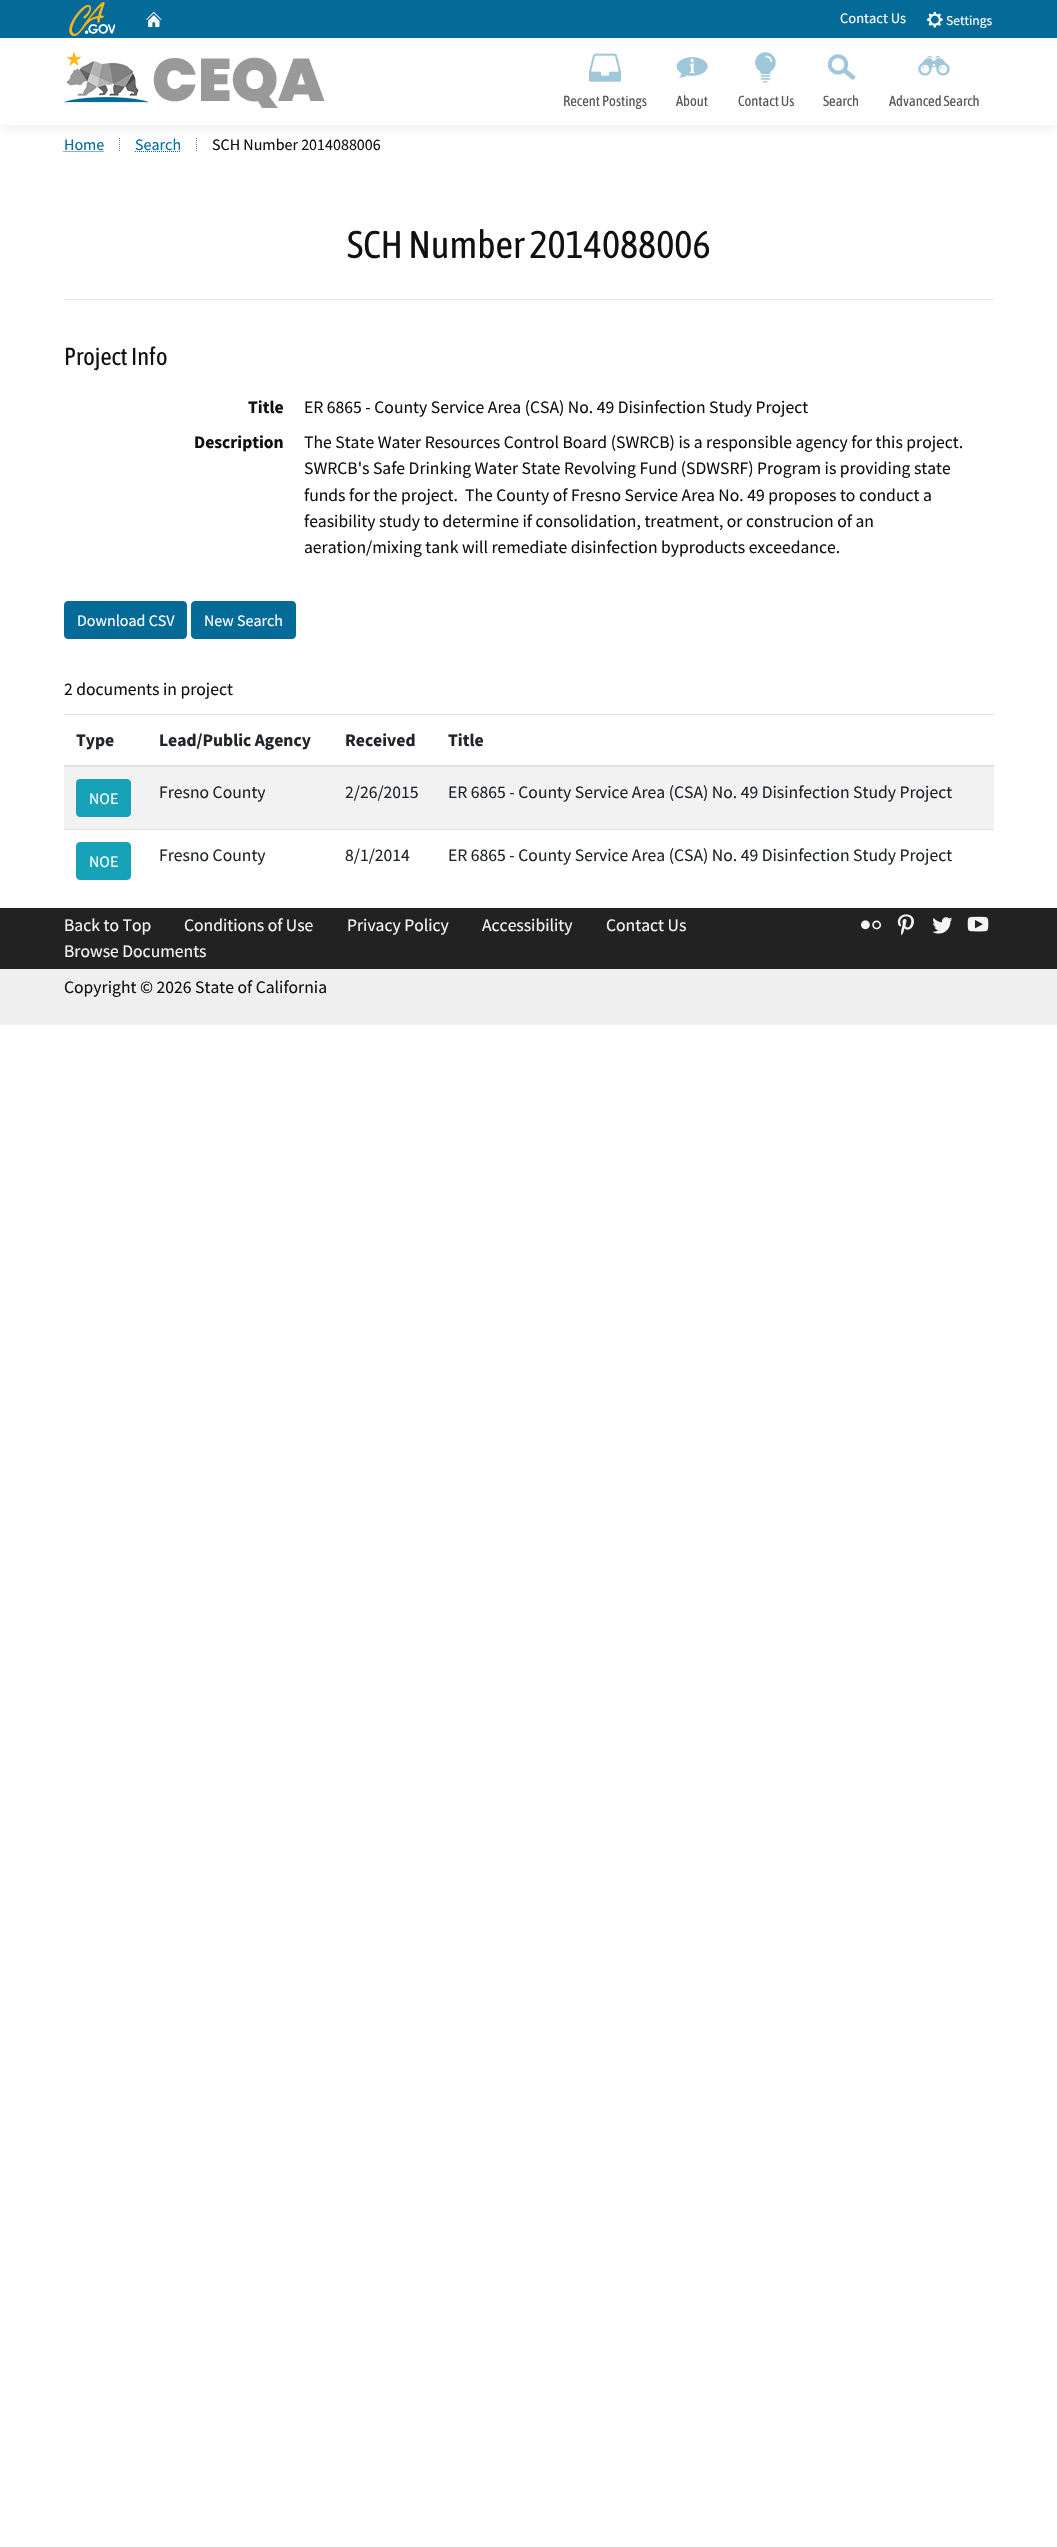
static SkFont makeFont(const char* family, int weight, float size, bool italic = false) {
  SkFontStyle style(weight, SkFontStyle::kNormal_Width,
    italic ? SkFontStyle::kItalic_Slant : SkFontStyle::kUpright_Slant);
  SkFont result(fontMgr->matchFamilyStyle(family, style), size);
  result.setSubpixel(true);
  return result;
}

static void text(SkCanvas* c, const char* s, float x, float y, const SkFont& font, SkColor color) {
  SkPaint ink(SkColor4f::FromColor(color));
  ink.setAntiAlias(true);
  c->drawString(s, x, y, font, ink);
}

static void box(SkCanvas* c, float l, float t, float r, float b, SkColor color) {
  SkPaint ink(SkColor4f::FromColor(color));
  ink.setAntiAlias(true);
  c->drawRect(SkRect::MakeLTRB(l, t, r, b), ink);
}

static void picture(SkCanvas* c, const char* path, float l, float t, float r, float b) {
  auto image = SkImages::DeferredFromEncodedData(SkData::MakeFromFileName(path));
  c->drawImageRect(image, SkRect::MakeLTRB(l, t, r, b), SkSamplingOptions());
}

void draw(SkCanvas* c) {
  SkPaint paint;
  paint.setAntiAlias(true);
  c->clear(0xffffffff);
  paint.setStyle(SkPaint::kStroke_Style);
  paint.setStrokeWidth(1);
  paint.setColor(0xff777777);
  paint.setPathEffect(SkDashPathEffect::Make({{1, 1}}, 0));
  c->drawPath(SkPathBuilder().moveTo(119.5f, 138).lineTo(119.5f, 151).detach(), paint);
  paint.setPathEffect(nullptr);
  paint.setPathEffect(SkDashPathEffect::Make({{1, 1}}, 0));
  c->drawPath(SkPathBuilder().moveTo(196.5f, 138).lineTo(196.5f, 151).detach(), paint);
  paint.setPathEffect(nullptr);
  c->save();
  c->clipRect(SkRect::MakeLTRB(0, 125, 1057, 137));
  paint.setStyle(SkPaint::kFill_Style);
  paint.setColor(0x66bdbdbd);
  paint.setMaskFilter(SkMaskFilter::MakeBlur(kNormal_SkBlurStyle, 7.5f));
  c->drawRect(SkRect::MakeLTRB(0, 0, 1057, 125), paint);
  paint.setMaskFilter(nullptr);
  c->restore();
  box(c, 0, 0, 1057, 38, 0xff046b99);
  picture(c, "img_01.png", 69, 2, 115, 36);
  picture(c, "img_02.png", 146, 11, 162, 28);
  SkFont face1 = makeFont("Source Sans Pro", 400, 14.5f);
  text(c, "Contact Us", 840, 23, face1, 0xffffffff);
  picture(c, "img_03.png", 926, 11, 943, 28);
  SkFont face2 = makeFont("Source Sans Pro", 400, 13.5f);
  text(c, "Settings", 946, 25, face2, 0xffffffff);
  picture(c, "img_04.png", 64, 51, 325, 108);
  picture(c, "img_05.png", 589, 53, 621, 82);
  SkFont face3 = makeFont("Asap Condensed", 400, 14.5f);
  text(c, "Recent Postings", 563, 106, face3, 0xff555555);
  picture(c, "img_06.png", 676, 57, 708, 78);
  text(c, "About", 676, 106, face3, 0xff555555);
  picture(c, "img_07.png", 755, 52, 776, 83);
  text(c, "Contact Us", 738, 106, face3, 0xff555555);
  picture(c, "img_08.png", 827, 54, 856, 80);
  text(c, "Search", 823, 106, face3, 0xff555555);
  picture(c, "img_09.png", 918, 56, 950, 76);
  text(c, "Advanced Search", 889, 106, face3, 0xff555555);
  SkFont face4 = makeFont("Source Sans Pro", 400, 16);
  text(c, "Home", 64, 150, face4, 0xff046b99);
  paint.setStyle(SkPaint::kStroke_Style);
  paint.setColor(0xff046b99);
  paint.setPathEffect(SkDashPathEffect::Make({{1, 1}}, 0));
  c->drawPath(SkPathBuilder().moveTo(63.5f, 151.5f).lineTo(104, 151.5f).detach(), paint);
  paint.setPathEffect(nullptr);
  text(c, "Search", 135, 150, face4, 0xff046b99);
  paint.setPathEffect(SkDashPathEffect::Make({{1, 1}}, 0));
  c->drawPath(SkPathBuilder().moveTo(135, 151.5f).lineTo(181, 151.5f).detach(), paint);
  paint.setPathEffect(nullptr);
  text(c, "SCH Number 2014088006", 212, 150, face4, 0xff111111);
  SkFont face5 = makeFont("Asap Condensed", 400, 38.5f);
  text(c, "SCH Number 2014088006", 347, 258, face5, 0xff111111);
  box(c, 64, 299, 994, 300, 0xffe6e6e6);
  SkFont face6 = makeFont("Asap Condensed", 400, 24.5f);
  text(c, "Project Info", 64, 365, face6, 0xff111111);
  SkFont face7 = makeFont("Source Sans Pro", 700, 17.6f);
  text(c, "Title", 248, 413, face7, 0xff111111);
  SkFont face8 = makeFont("Source Sans Pro", 400, 17.6f);
  text(c, "ER 6865 - County Service Area (CSA) No. 49 Disinfection Study Project", 304, 413, face8, 0xff111111);
  text(c, "Description", 194, 448, face7, 0xff111111);
  text(c, "The State Water Resources Control Board (SWRCB) is a responsible agency for this project.", 304, 448, face8, 0xff111111);
  text(c, "SWRCB's Safe Drinking Water State Revolving Fund (SDWSRF) Program is providing state", 304, 474, face8, 0xff111111);
  text(c, "funds for the project.  The County of Fresno Service Area No. 49 proposes to conduct a", 304, 501, face8, 0xff111111);
  text(c, "feasibility study to determine if consolidation, treatment, or construcion of an", 304, 527, face8, 0xff111111);
  text(c, "aeration/mixing tank will remediate disinfection byproducts exceedance.", 304, 553, face8, 0xff111111);
  paint.setStyle(SkPaint::kFill_Style);
  c->drawRoundRect(SkRect::MakeLTRB(64.5f, 601.5f, 186.5f, 638.5f), 3.5f, 3.5f, paint);
  paint.setStyle(SkPaint::kStroke_Style);
  c->drawRoundRect(SkRect::MakeLTRB(64.5f, 601.5f, 186.5f, 638.5f), 3.5f, 3.5f, paint);
  text(c, "Download CSV", 77, 626, face4, 0xffffffff);
  paint.setStyle(SkPaint::kFill_Style);
  c->drawRoundRect(SkRect::MakeLTRB(191.5f, 601.5f, 295.5f, 638.5f), 3.5f, 3.5f, paint);
  paint.setStyle(SkPaint::kStroke_Style);
  c->drawRoundRect(SkRect::MakeLTRB(191.5f, 601.5f, 295.5f, 638.5f), 3.5f, 3.5f, paint);
  text(c, "New Search", 204, 626, face4, 0xffffffff);
  text(c, "2 documents in project", 64, 695, face8, 0xff111111);
  text(c, "Type", 76, 746, face7, 0xff212529);
  text(c, "Lead/Public Agency", 159, 746, face7, 0xff212529);
  text(c, "Received", 345, 746, face7, 0xff212529);
  box(c, 64, 714, 994, 715, 0xffdee2e6);
  box(c, 64, 765, 994, 767, 0xffdee2e6);
  text(c, "Title", 448, 746, face7, 0xff212529);
  box(c, 64, 767, 994, 829, 0xfff2f2f2);
  paint.setStyle(SkPaint::kFill_Style);
  paint.setColor(0xff17a2b8);
  c->drawRoundRect(SkRect::MakeLTRB(76.5f, 779.5f, 130.5f, 816.5f), 3.5f, 3.5f, paint);
  paint.setStyle(SkPaint::kStroke_Style);
  c->drawRoundRect(SkRect::MakeLTRB(76.5f, 779.5f, 130.5f, 816.5f), 3.5f, 3.5f, paint);
  text(c, "NOE", 89, 804, face4, 0xffffffff);
  text(c, "Fresno County", 159, 798, face8, 0xff212529);
  text(c, "2/26/2015", 345, 798, face8, 0xff212529);
  text(c, "ER 6865 - County Service Area (CSA) No. 49 Disinfection Study Project", 448, 798, face8, 0xff212529);
  paint.setStyle(SkPaint::kFill_Style);
  c->drawRoundRect(SkRect::MakeLTRB(76.5f, 842.5f, 130.5f, 879.5f), 3.5f, 3.5f, paint);
  paint.setStyle(SkPaint::kStroke_Style);
  c->drawRoundRect(SkRect::MakeLTRB(76.5f, 842.5f, 130.5f, 879.5f), 3.5f, 3.5f, paint);
  text(c, "NOE", 89, 867, face4, 0xffffffff);
  text(c, "Fresno County", 159, 861, face8, 0xff212529);
  text(c, "8/1/2014", 345, 861, face8, 0xff212529);
  box(c, 64, 829, 994, 830, 0xffdee2e6);
  text(c, "ER 6865 - County Service Area (CSA) No. 49 Disinfection Study Project", 448, 861, face8, 0xff212529);
  box(c, 0, 908, 1057, 969, 0xff222222);
  text(c, "Back to Top", 64, 931, face8, 0xfff5f5f5);
  text(c, "Conditions of Use", 184, 931, face8, 0xfff5f5f5);
  text(c, "Privacy Policy", 347, 931, face8, 0xfff5f5f5);
  text(c, "Accessibility", 482, 931, face8, 0xfff5f5f5);
  text(c, "Contact Us", 606, 931, face8, 0xfff5f5f5);
  text(c, "Browse Documents", 64, 957, face8, 0xfff5f5f5);
  picture(c, "img_10.png", 861, 920, 881, 930);
  picture(c, "img_11.png", 897, 914, 914, 936);
  picture(c, "img_12.png", 932, 917, 953, 934);
  picture(c, "img_13.png", 967, 916, 989, 932);
  box(c, 0, 969, 1057, 1025, 0xffefefef);
  text(c, "Copyright © 2026 State of California", 64, 993, face8, 0xff111111);
}
